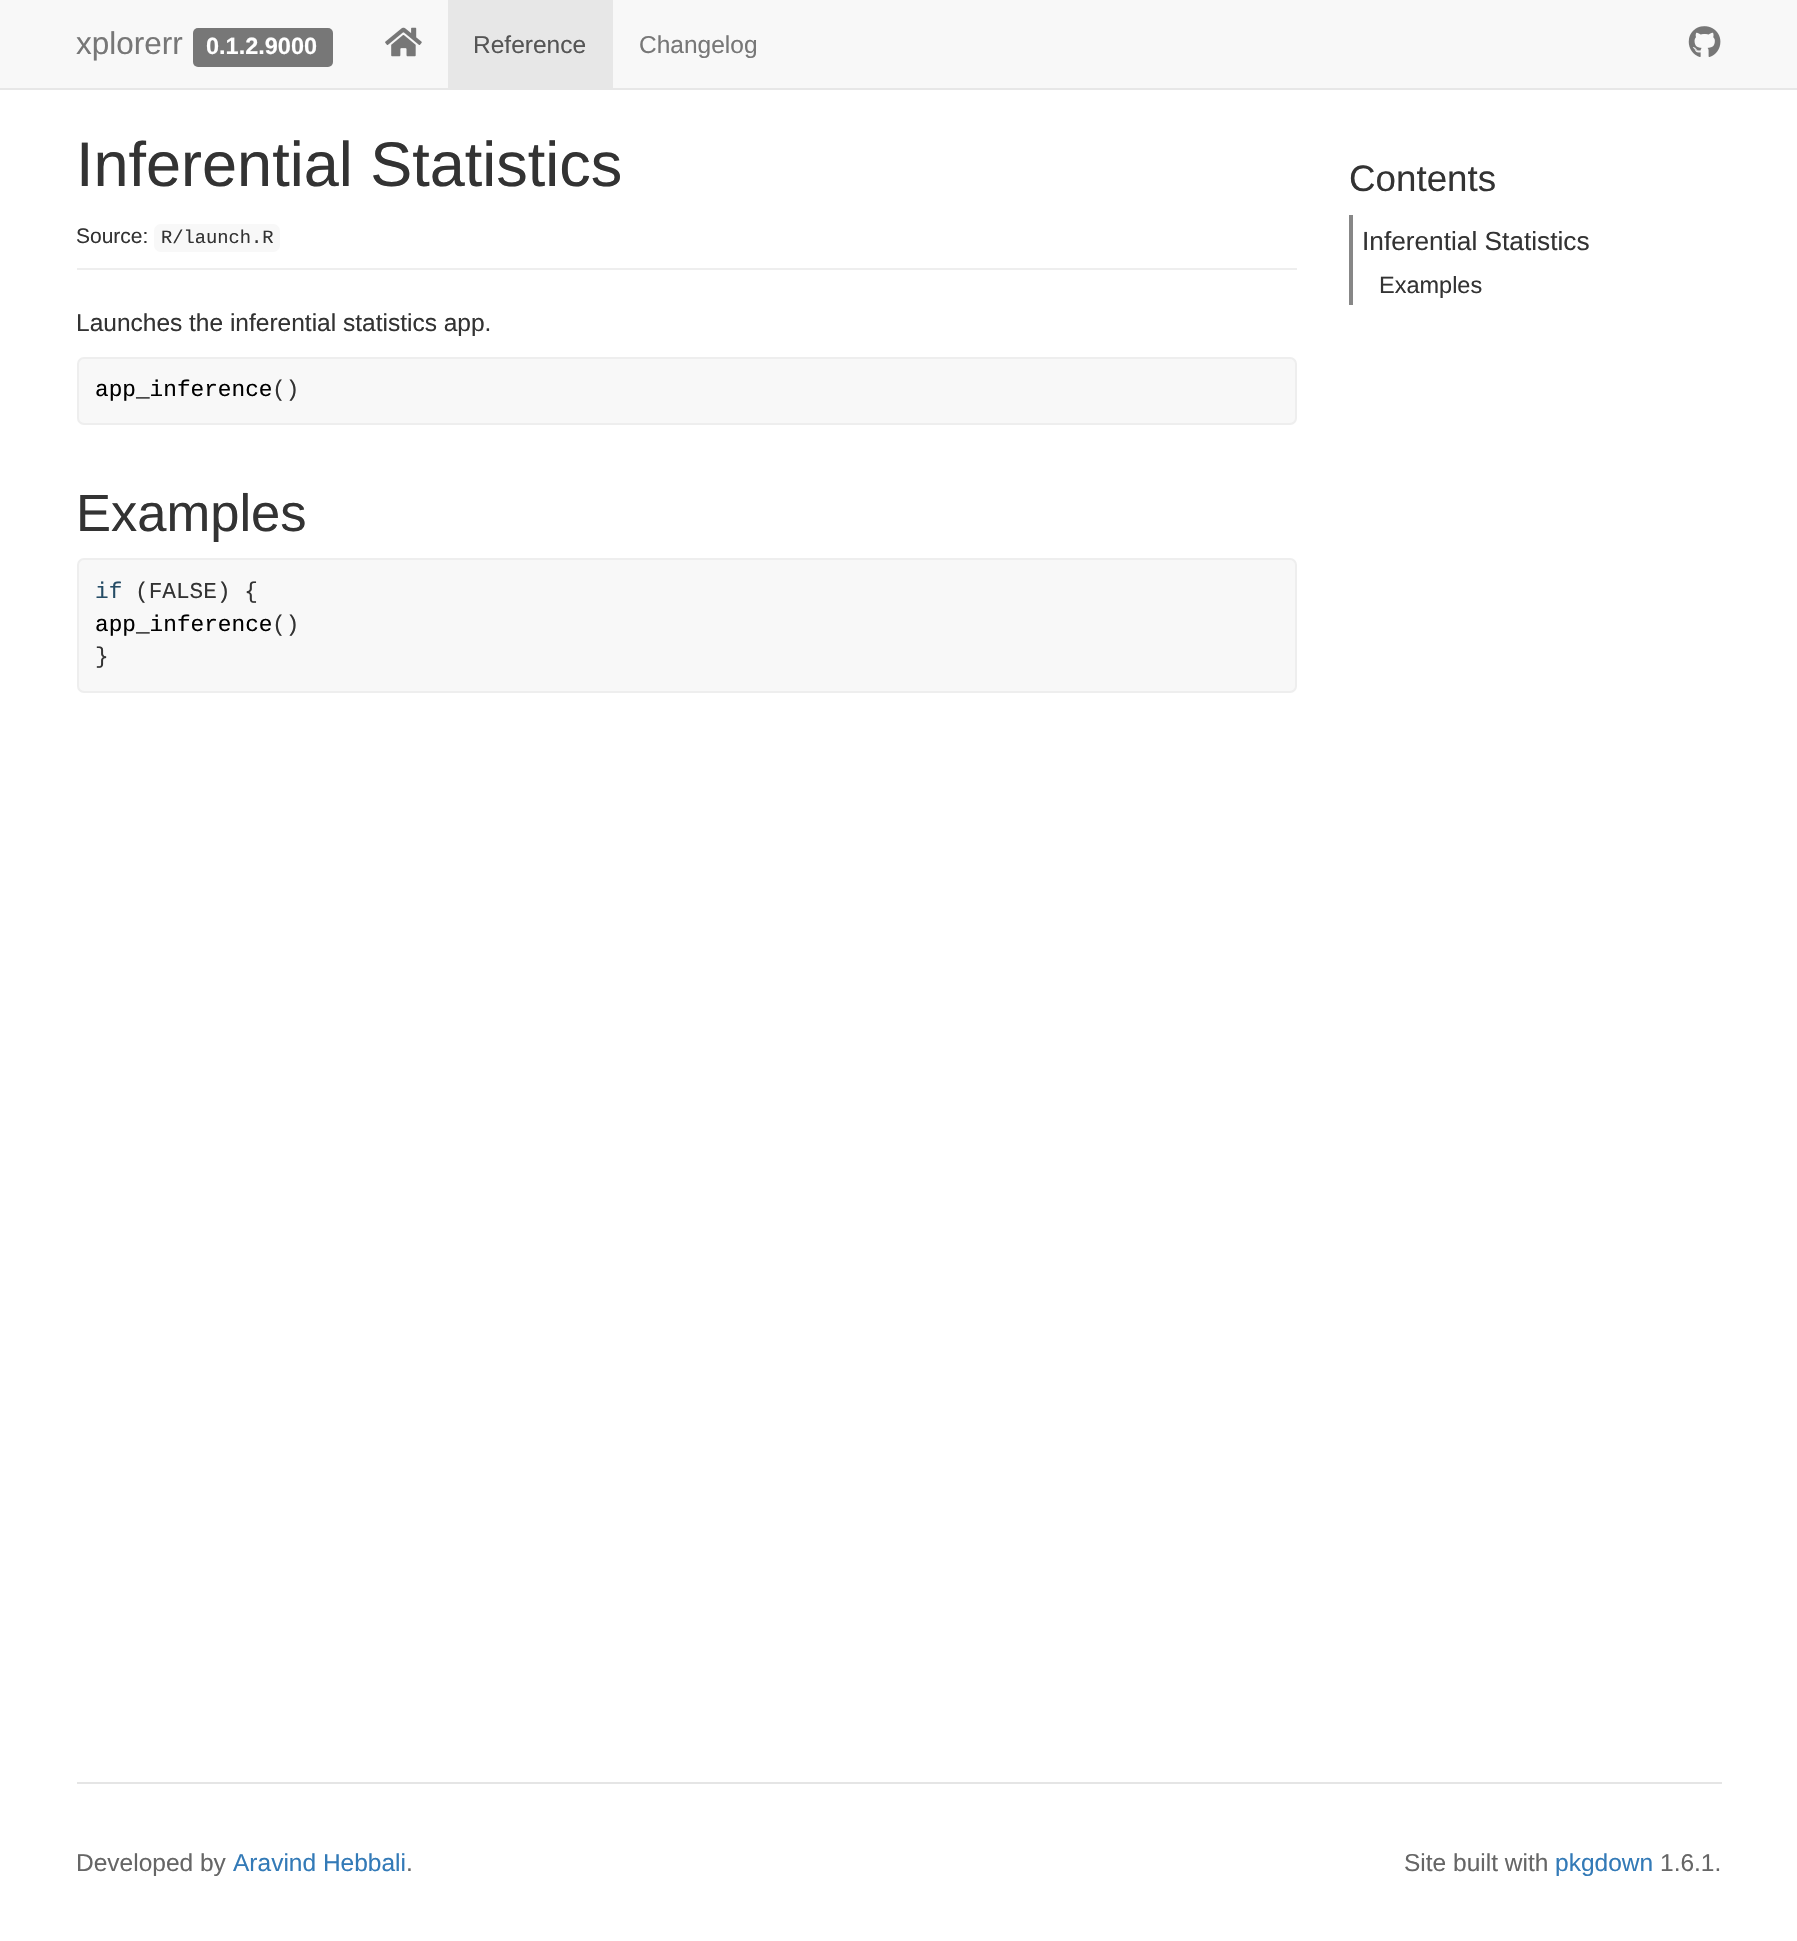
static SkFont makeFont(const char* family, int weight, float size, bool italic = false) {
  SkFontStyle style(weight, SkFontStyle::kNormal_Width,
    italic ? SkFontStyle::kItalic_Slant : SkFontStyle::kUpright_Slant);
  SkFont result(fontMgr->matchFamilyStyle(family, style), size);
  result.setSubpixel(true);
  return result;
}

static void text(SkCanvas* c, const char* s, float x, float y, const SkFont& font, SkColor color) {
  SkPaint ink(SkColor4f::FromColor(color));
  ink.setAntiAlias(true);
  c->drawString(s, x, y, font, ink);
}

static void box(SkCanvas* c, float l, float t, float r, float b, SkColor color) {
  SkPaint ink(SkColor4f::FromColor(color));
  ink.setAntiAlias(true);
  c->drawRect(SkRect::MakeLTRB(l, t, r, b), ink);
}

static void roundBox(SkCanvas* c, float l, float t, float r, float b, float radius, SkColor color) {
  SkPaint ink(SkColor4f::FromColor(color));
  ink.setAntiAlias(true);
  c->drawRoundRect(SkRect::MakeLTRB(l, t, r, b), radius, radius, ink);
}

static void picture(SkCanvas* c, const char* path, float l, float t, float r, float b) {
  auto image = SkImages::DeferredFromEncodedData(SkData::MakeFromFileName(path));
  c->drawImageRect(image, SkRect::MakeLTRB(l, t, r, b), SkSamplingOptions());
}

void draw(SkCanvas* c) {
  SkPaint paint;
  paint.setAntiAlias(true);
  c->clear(0xffffffff);
  box(c, 0, 0, 1797, 88, 0xfff8f8f8);
  box(c, 0, 88, 1797, 90, 0xffe7e7e7);
  SkFont face1 = makeFont("Liberation Sans", 400, 31.5f);
  text(c, "xplorerr", 76, 54, face1, 0xff777777);
  roundBox(c, 193, 28, 333, 67, 5, 0xff777777);
  SkFont face2 = makeFont("Liberation Sans", 700, 23.5f);
  text(c, "0.1.2.9000", 206, 54, face2, 0xffffffff);
  picture(c, "img_01.png", 385, 27, 422, 57);
  box(c, 448, 0, 613, 88, 0xffe7e7e7);
  SkFont face3 = makeFont("Liberation Sans", 400, 24.5f);
  text(c, "Reference", 473, 53, face3, 0xff555555);
  text(c, "Changelog", 639, 53, face3, 0xff777777);
  picture(c, "img_02.png", 1688, 26, 1721, 57);
  box(c, 77, 268, 1297, 270, 0xffeeeeee);
  SkFont face4 = makeFont("Liberation Sans", 400, 63);
  text(c, "Inferential Statistics", 76, 186, face4, 0xff333333);
  SkFont face5 = makeFont("Liberation Sans", 400, 21);
  text(c, "Source:", 76, 243, face5, 0xff333333);
  roundBox(c, 154, 224, 280, 252, 7, 0xfff8f8f8);
  SkFont face6 = makeFont("Liberation Mono", 400, 18.75f);
  text(c, "R/launch.R", 161, 243, face6, 0xff333333);
  text(c, "Launches the inferential statistics app.", 76, 331, face3, 0xff333333);
  paint.setColor(0xfff8f8f8);
  c->drawRoundRect(SkRect::MakeLTRB(78, 358, 1296, 424), 6, 6, paint);
  paint.setStyle(SkPaint::kStroke_Style);
  paint.setStrokeWidth(2);
  paint.setColor(0xffeeeeee);
  c->drawRoundRect(SkRect::MakeLTRB(78, 358, 1296, 424), 6, 6, paint);
  SkFont face7 = makeFont("Liberation Mono", 400, 22.75f);
  text(c, "app_inference", 95, 396, face7, 0xff000000);
  text(c, "()", 272, 396, face7, 0xff333333);
  SkFont face8 = makeFont("Liberation Sans", 400, 52.5f);
  text(c, "Examples", 76, 531, face8, 0xff333333);
  paint.setStyle(SkPaint::kFill_Style);
  paint.setColor(0xfff8f8f8);
  c->drawRoundRect(SkRect::MakeLTRB(78, 559, 1296, 692), 6, 6, paint);
  paint.setStyle(SkPaint::kStroke_Style);
  paint.setColor(0xffeeeeee);
  c->drawRoundRect(SkRect::MakeLTRB(78, 559, 1296, 692), 6, 6, paint);
  text(c, "if", 95, 598, face7, 0xff264d66);
  text(c, "(FALSE) {", 135, 598, face7, 0xff333333);
  text(c, "app_inference", 95, 631, face7, 0xff000000);
  text(c, "()", 272, 631, face7, 0xff333333);
  text(c, "}", 95, 663, face7, 0xff333333);
  SkFont face9 = makeFont("Liberation Sans", 400, 36.75f);
  text(c, "Contents", 1349, 191, face9, 0xff333333);
  box(c, 1349, 215, 1353, 305, 0xff878787);
  SkFont face10 = makeFont("Liberation Sans", 400, 26.25f);
  text(c, "Inferential Statistics", 1362, 250, face10, 0xff333333);
  SkFont face11 = makeFont("Liberation Sans", 400, 23.5f);
  text(c, "Examples", 1379, 293, face11, 0xff333333);
  box(c, 77, 1782, 1722, 1784, 0xffe5e5e5);
  text(c, "Developed by", 76, 1871, face3, 0xff666666);
  text(c, "Aravind Hebbali", 233, 1871, face3, 0xff337ab7);
  text(c, ".", 406, 1871, face3, 0xff666666);
  text(c, "Site built with", 1404, 1871, face3, 0xff666666);
  text(c, "pkgdown", 1555, 1871, face3, 0xff337ab7);
  text(c, "1.6.1.", 1660, 1871, face3, 0xff666666);
}
